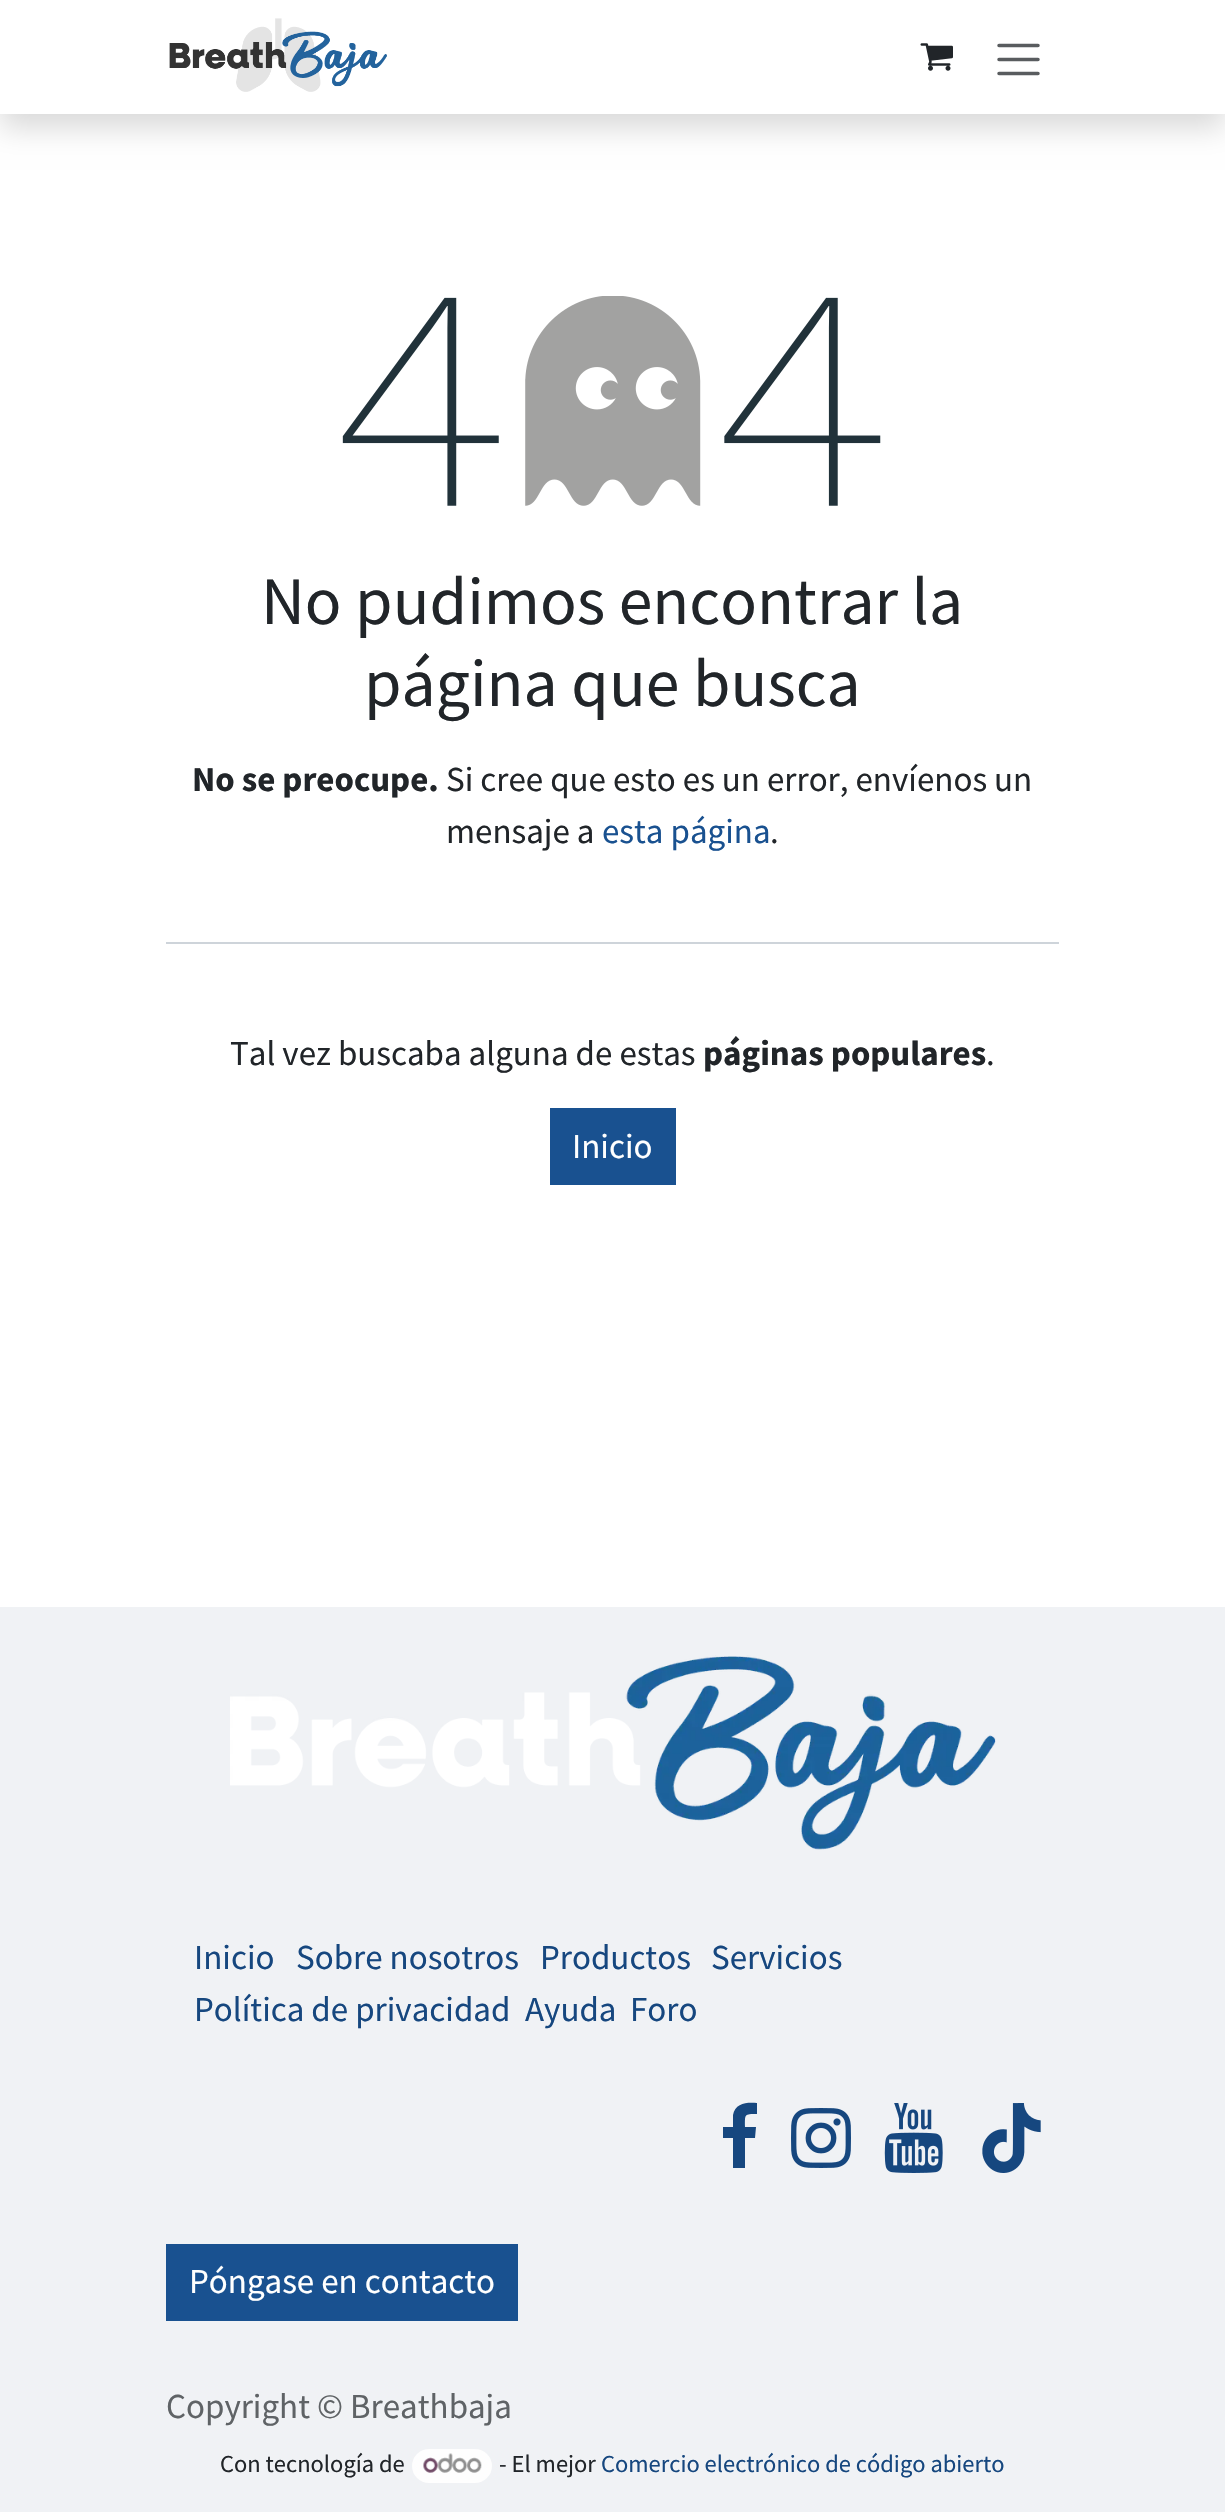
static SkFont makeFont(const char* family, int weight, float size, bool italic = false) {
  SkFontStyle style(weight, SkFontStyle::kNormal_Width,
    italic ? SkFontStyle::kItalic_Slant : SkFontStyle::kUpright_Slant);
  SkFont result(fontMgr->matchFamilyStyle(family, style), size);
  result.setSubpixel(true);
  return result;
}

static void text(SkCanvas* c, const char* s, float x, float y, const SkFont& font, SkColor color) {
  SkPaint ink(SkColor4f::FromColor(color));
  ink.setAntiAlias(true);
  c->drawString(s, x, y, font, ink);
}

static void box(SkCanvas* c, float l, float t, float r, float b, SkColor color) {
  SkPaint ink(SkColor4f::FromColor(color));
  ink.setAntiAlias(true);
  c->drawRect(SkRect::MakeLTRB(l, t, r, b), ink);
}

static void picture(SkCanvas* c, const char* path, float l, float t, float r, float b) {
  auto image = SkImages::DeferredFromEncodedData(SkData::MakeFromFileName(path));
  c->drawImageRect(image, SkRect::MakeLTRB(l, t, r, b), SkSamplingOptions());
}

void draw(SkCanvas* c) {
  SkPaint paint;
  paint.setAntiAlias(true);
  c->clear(0xffffffff);
  paint.setColor(0x26000000);
  paint.setMaskFilter(SkMaskFilter::MakeBlur(kNormal_SkBlurStyle, 14));
  c->drawRect(SkRect::MakeLTRB(0, 14, 1225, 128), paint);
  paint.setMaskFilter(nullptr);
  box(c, 0, 0, 1225, 114, 0xffffffff);
  picture(c, "img_01.png", 169, 18, 387, 92);
  picture(c, "img_02.png", 920, 43, 953, 71);
  paint.setStyle(SkPaint::kStroke_Style);
  paint.setStrokeWidth(3.5f);
  paint.setStrokeCap(SkPaint::kRound_Cap);
  paint.setColor(0xff595c5f);
  c->drawPath(SkPathBuilder().moveTo(999, 45.5f).lineTo(1038, 45.5f).moveTo(999, 59.5f).lineTo(1038, 59.5f).moveTo(999, 73.5f).lineTo(1038, 73.5f).detach(), paint);
  picture(c, "img_03.png", 342, 296, 881, 506);
  SkFont face1 = makeFont("Source Sans Pro", 400, 67.75f);
  text(c, "No pudimos encontrar la", 261, 624, face1, 0xff212529);
  text(c, "página que busca", 364, 706, face1, 0xff212529);
  SkFont face2 = makeFont("Source Sans Pro", 700, 35);
  text(c, "No se preocupe.", 192, 791, face2, 0xff212529);
  SkFont face3 = makeFont("Source Sans Pro", 400, 35);
  text(c, "Si cree que esto es un error, envíenos un", 446, 791, face3, 0xff212529);
  text(c, "mensaje a", 446, 843, face3, 0xff212529);
  text(c, "esta página", 602, 843, face3, 0xff195190);
  text(c, ".", 770, 843, face3, 0xff212529);
  box(c, 166, 942, 1059, 944, 0xffced4da);
  text(c, "Tal vez buscaba alguna de estas", 230, 1065, face3, 0xff212529);
  text(c, "páginas populares", 703, 1065, face2, 0xff212529);
  text(c, ".", 986, 1065, face3, 0xff212529);
  box(c, 550, 1108, 676, 1185, 0xff195190);
  text(c, "Inicio", 572, 1158, face3, 0xffffffff);
  box(c, 0, 1607, 1225, 2512, 0xfff0f2f5);
  picture(c, "img_04.png", 230, 1655, 996, 1850);
  text(c, "Inicio", 194, 1969, face3, 0xff16477f);
  text(c, "Sobre nosotros", 296, 1969, face3, 0xff16477f);
  text(c, "Productos", 540, 1969, face3, 0xff16477f);
  text(c, "Servicios", 711, 1969, face3, 0xff16477f);
  text(c, "Política de privacidad", 194, 2021, face3, 0xff16477f);
  text(c, "Ayuda", 525, 2021, face3, 0xff16477f);
  text(c, "Foro", 630, 2021, face3, 0xff16477f);
  paint.setStyle(SkPaint::kFill_Style);
  paint.setColor(0xff16477f);
  c->drawPath(SkPathBuilder().moveTo(757, 2103).lineTo(757, 2114).cubicTo(744, 2114, 745, 2114, 745, 2127).lineTo(756, 2127).lineTo(755, 2138).lineTo(745, 2138).lineTo(745, 2168).lineTo(733, 2168).lineTo(733, 2138).lineTo(723, 2138).lineTo(723, 2127).lineTo(733, 2127).lineTo(733, 2115).cubicTo(735, 2103, 747, 2102, 757, 2103).close().detach(), paint);
  picture(c, "img_05.png", 791, 2108, 851, 2168);
  picture(c, "img_06.png", 884, 2103, 943, 2173);
  picture(c, "img_07.png", 982, 2103, 1041, 2173);
  box(c, 166, 2244, 518, 2321, 0xff195190);
  text(c, "Póngase en contacto", 189, 2293, face3, 0xffffffff);
  text(c, "Copyright © Breathbaja", 166, 2418, face3, 0xff5f6366);
  SkFont face4 = makeFont("Source Sans Pro", 400, 24.5f);
  text(c, "Con tecnología de", 220, 2472, face4, 0xff212529);
  paint.setColor(0xfffefefe);
  c->drawRoundRect(SkRect::MakeLTRB(411, 2448, 493, 2484), 18, 18, paint);
  paint.setStyle(SkPaint::kStroke_Style);
  paint.setStrokeWidth(2);
  paint.setStrokeCap(SkPaint::kButt_Cap);
  paint.setColor(0xfff0f2f5);
  c->drawRoundRect(SkRect::MakeLTRB(411, 2448, 493, 2484), 18, 18, paint);
  picture(c, "img_08.png", 423, 2453, 482, 2473);
  text(c, "- El mejor", 499, 2472, face4, 0xff212529);
  text(c, "Comercio electrónico de código abierto", 601, 2472, face4, 0xff16477f);
}
